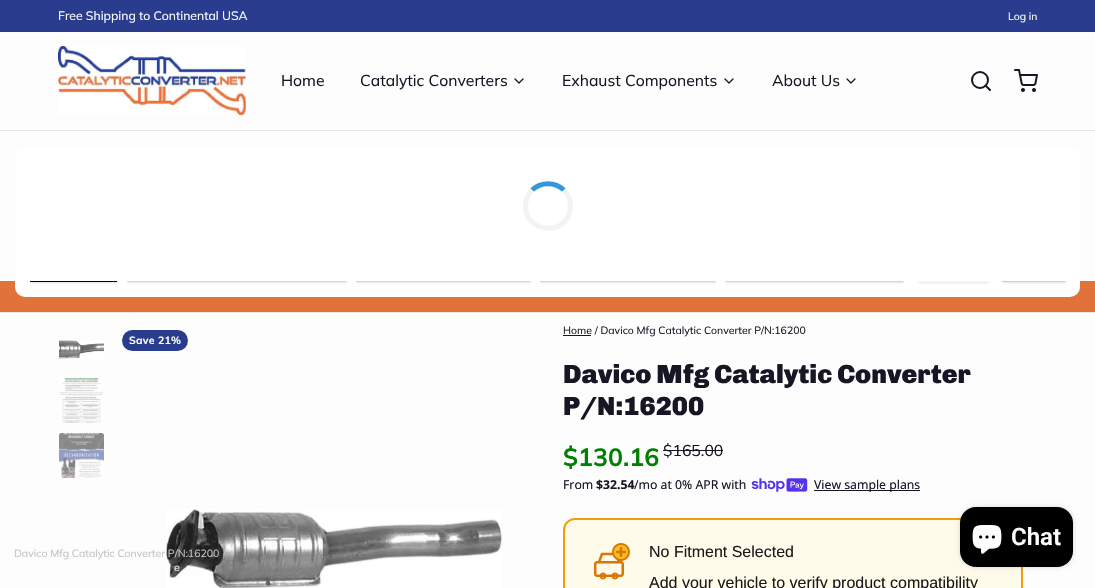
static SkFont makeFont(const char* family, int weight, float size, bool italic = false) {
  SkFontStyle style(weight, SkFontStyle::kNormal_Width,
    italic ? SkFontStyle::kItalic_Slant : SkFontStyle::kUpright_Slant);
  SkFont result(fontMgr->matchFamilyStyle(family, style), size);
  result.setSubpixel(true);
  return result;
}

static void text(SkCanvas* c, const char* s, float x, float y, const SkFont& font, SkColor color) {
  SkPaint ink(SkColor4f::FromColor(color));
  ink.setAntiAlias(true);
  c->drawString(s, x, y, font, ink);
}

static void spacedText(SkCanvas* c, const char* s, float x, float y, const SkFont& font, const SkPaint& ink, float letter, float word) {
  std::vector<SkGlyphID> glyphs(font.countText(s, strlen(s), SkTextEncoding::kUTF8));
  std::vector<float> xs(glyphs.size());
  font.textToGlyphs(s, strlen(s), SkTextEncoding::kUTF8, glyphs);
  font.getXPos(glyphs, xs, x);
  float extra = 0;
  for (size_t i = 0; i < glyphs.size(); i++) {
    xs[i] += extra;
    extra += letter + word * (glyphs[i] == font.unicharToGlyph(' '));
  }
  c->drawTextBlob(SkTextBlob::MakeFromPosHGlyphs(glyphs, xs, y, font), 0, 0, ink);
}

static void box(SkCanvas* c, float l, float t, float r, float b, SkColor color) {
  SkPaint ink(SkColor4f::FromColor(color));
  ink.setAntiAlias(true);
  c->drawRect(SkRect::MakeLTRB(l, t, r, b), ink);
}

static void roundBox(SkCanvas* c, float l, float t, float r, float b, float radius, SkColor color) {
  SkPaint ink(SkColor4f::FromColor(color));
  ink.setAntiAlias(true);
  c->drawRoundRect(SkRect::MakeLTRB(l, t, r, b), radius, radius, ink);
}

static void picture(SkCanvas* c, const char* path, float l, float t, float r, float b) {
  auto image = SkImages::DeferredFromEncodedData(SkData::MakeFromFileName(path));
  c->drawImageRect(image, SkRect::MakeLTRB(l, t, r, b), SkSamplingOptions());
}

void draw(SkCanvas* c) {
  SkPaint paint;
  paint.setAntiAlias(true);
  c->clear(0xfffdfdfd);
  box(c, 0, 0, 1095, 32, 0xff2a3c8e);
  SkFont face1 = makeFont("Muli", 400, 12.25f);
  text(c, "Free Shipping to Continental USA", 58, 20, face1, 0xfffdfdfd);
  SkFont face2 = makeFont("Muli", 400, 10.5f);
  text(c, "Log in", 1008, 20, face2, 0xfffdfdfd);
  box(c, 0, 130, 1095, 131, 0xffe6e6e6);
  picture(c, "img_01.png", 58, 46, 246, 115);
  SkFont face3 = makeFont("Muli", 400, 15.75f);
  text(c, "Home", 281, 86, face3, 0xff161625);
  text(c, "Catalytic Converters", 360, 86, face3, 0xff161625);
  paint.setStyle(SkPaint::kStroke_Style);
  paint.setStrokeWidth(1.3f);
  paint.setStrokeCap(SkPaint::kRound_Cap);
  paint.setStrokeJoin(SkPaint::kRound_Join);
  paint.setColor(0xff161625);
  c->drawPath(SkPathBuilder().moveTo(515, 79).lineTo(519, 83).lineTo(523, 79).detach(), paint);
  text(c, "Exhaust Components", 562, 86, face3, 0xff161625);
  c->drawPath(SkPathBuilder().moveTo(725, 79).lineTo(729, 83).lineTo(733, 79).detach(), paint);
  text(c, "About Us", 772, 86, face3, 0xff161625);
  c->drawPath(SkPathBuilder().moveTo(847, 79).lineTo(851, 83).lineTo(855, 79).detach(), paint);
  paint.setStrokeWidth(2);
  paint.setStrokeCap(SkPaint::kButt_Cap);
  paint.setStrokeJoin(SkPaint::kMiter_Join);
  c->drawCircle(980, 80, 8, paint);
  paint.setStrokeCap(SkPaint::kRound_Cap);
  paint.setStrokeJoin(SkPaint::kRound_Join);
  c->drawPath(SkPathBuilder().moveTo(990, 90).lineTo(985.5f, 85.5f).detach(), paint);
  picture(c, "img_02.png", 1014, 69, 1038, 92);
  box(c, 0, 312, 1095, 313, 0xffe6e6e6);
  box(c, 0, 281, 1095, 312, 0xffe1723a);
  roundBox(c, 15, 146, 1080, 297, 10, 0xffffffff);
  paint.setStyle(SkPaint::kFill_Style);
  paint.setColor(0x1f101828);
  paint.setMaskFilter(SkMaskFilter::MakeBlur(kNormal_SkBlurStyle, 1));
  c->drawRect(SkRect::MakeLTRB(31, 238, 118, 283), paint);
  paint.setMaskFilter(nullptr);
  paint.setStyle(SkPaint::kStroke_Style);
  paint.setStrokeWidth(1);
  paint.setStrokeCap(SkPaint::kButt_Cap);
  paint.setStrokeJoin(SkPaint::kMiter_Join);
  paint.setColor(0xff000000);
  c->drawRect(SkRect::MakeLTRB(30.5f, 237.5f, 116.5f, 281.5f), paint);
  paint.setStyle(SkPaint::kFill_Style);
  paint.setColor(0x1f101828);
  paint.setMaskFilter(SkMaskFilter::MakeBlur(kNormal_SkBlurStyle, 1));
  c->drawRect(SkRect::MakeLTRB(128, 238, 347, 283), paint);
  paint.setMaskFilter(nullptr);
  paint.setStyle(SkPaint::kStroke_Style);
  paint.setColor(0xffd0d5dd);
  c->drawRect(SkRect::MakeLTRB(127.5f, 237.5f, 345.5f, 281.5f), paint);
  paint.setStyle(SkPaint::kFill_Style);
  paint.setColor(0x1f101828);
  paint.setMaskFilter(SkMaskFilter::MakeBlur(kNormal_SkBlurStyle, 1));
  c->drawRect(SkRect::MakeLTRB(357, 238, 531, 283), paint);
  paint.setMaskFilter(nullptr);
  paint.setStyle(SkPaint::kStroke_Style);
  paint.setColor(0xffd0d5dd);
  c->drawRect(SkRect::MakeLTRB(356.5f, 237.5f, 529.5f, 281.5f), paint);
  paint.setStyle(SkPaint::kFill_Style);
  paint.setColor(0x1f101828);
  paint.setMaskFilter(SkMaskFilter::MakeBlur(kNormal_SkBlurStyle, 1));
  c->drawRect(SkRect::MakeLTRB(541, 238, 716, 283), paint);
  paint.setMaskFilter(nullptr);
  paint.setStyle(SkPaint::kStroke_Style);
  paint.setColor(0xffd0d5dd);
  c->drawRect(SkRect::MakeLTRB(540.5f, 237.5f, 714.5f, 281.5f), paint);
  paint.setStyle(SkPaint::kFill_Style);
  paint.setColor(0x1f101828);
  paint.setMaskFilter(SkMaskFilter::MakeBlur(kNormal_SkBlurStyle, 1));
  c->drawRect(SkRect::MakeLTRB(726, 238, 904, 283), paint);
  paint.setMaskFilter(nullptr);
  paint.setStyle(SkPaint::kStroke_Style);
  paint.setColor(0xffd0d5dd);
  c->drawRect(SkRect::MakeLTRB(725.5f, 237.5f, 902.5f, 281.5f), paint);
  paint.setStyle(SkPaint::kFill_Style);
  paint.setColor(0x1f101828);
  paint.setMaskFilter(SkMaskFilter::MakeBlur(kNormal_SkBlurStyle, 1));
  c->drawRect(SkRect::MakeLTRB(919, 238, 988, 283), paint);
  paint.setMaskFilter(nullptr);
  box(c, 918, 281, 987, 282, 0xfff4f7f9);
  paint.setMaskFilter(SkMaskFilter::MakeBlur(kNormal_SkBlurStyle, 1));
  c->drawRect(SkRect::MakeLTRB(1003, 238, 1066, 283), paint);
  paint.setMaskFilter(nullptr);
  box(c, 1002, 281, 1065, 282, 0xffcdcdcd);
  box(c, 30, 237, 1067, 281, 0xffffffff);
  paint.setStyle(SkPaint::kStroke_Style);
  paint.setStrokeWidth(5);
  paint.setColor(0xff3498db);
  c->drawPath(SkPathBuilder().moveTo(532, 190).cubicTo(541, 181.5f, 555, 181.5f, 564, 190).detach(), paint);
  paint.setColor(0xfff3f3f3);
  c->drawPath(SkPathBuilder().moveTo(564, 190).cubicTo(569, 195.5f, 571.5f, 203, 570, 210.5f).cubicTo(565, 236.5f, 525.5f, 233, 525.5f, 206).cubicTo(525.5f, 200, 528, 194.5f, 532, 190).detach(), paint);
  picture(c, "img_06.png", 166, 509, 502, 588);
  text(c, "Davico Mfg Catalytic Converter P/N:16200", 14, 557, face2, 0xffc3c3c3);
  text(c, "e", 174, 571, face2, 0xffeeeeee);
  picture(c, "img_03.png", 59, 340, 104, 359);
  picture(c, "img_04.png", 60, 378, 103, 423);
  picture(c, "img_05.png", 59, 433, 104, 478);
  roundBox(c, 122, 330, 188, 351, 10.5f, 0xff2a3c8e);
  SkFont face4 = makeFont("Muli", 700, 10.5f);
  paint.setStyle(SkPaint::kFill_Style);
  paint.setColor(0xfffdfdfd);
  spacedText(c, "Save 21%", 129, 344, face4, paint, 0.25f, 0);
  box(c, 563, 335, 591, 336, 0xff161625);
  text(c, "Home / Davico Mfg Catalytic Converter P/N:16200", 563, 334, face2, 0xff161625);
  SkFont face5 = makeFont("Chivo", 900, 26.25f);
  text(c, "Davico Mfg Catalytic Converter", 563, 383, face5, 0xff161625);
  text(c, "P/N:16200", 563, 415, face5, 0xff161625);
  SkFont face6 = makeFont("Muli", 700, 25);
  text(c, "$130.16", 563, 466, face6, 0xff008000);
  text(c, "$165.00", 663, 456, face3, 0xff161625);
  box(c, 663, 450, 723, 451, 0xff161625);
  SkFont face7 = makeFont("Noto Sans", 400, 12.25f);
  text(c, "From", 563, 489, face7, 0xff161625);
  SkFont face8 = makeFont("Noto Sans", 700, 12.25f);
  text(c, "$32.54", 596, 489, face8, 0xff161625);
  text(c, "/mo at 0% APR with", 634, 489, face7, 0xff161625);
  picture(c, "img_07.png", 751, 478, 808, 492);
  box(c, 814, 490, 920, 491, 0xff161625);
  text(c, "View sample plans", 814, 489, face7, 0xff161625);
  paint.setColor(0xfffffbeb);
  c->drawRoundRect(SkRect::MakeLTRB(564, 519, 1022, 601), 11, 11, paint);
  paint.setStyle(SkPaint::kStroke_Style);
  paint.setStrokeWidth(2);
  paint.setColor(0xfff59e0b);
  c->drawRoundRect(SkRect::MakeLTRB(564, 519, 1022, 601), 11, 11, paint);
  picture(c, "img_08.png", 594, 543, 630, 580);
  SkFont face9 = makeFont("Liberation Sans", 400, 16);
  text(c, "No Fitment Selected", 649, 557, face9, 0xff1a1a1a);
  text(c, "Add your vehicle to verify product compatibility", 649, 588, face9, 0xff1a1a1a);
  paint.setStyle(SkPaint::kFill_Style);
  paint.setColor(0x26000000);
  paint.setMaskFilter(SkMaskFilter::MakeBlur(kNormal_SkBlurStyle, 2.5f));
  c->drawRoundRect(SkRect::MakeLTRB(960, 507, 1073, 567), 16, 16, paint);
  paint.setMaskFilter(nullptr);
  roundBox(c, 960, 507, 1073, 567, 16, 0xff000000);
  picture(c, "img_09.png", 972, 525, 1002, 554);
  SkFont face10 = makeFont("Roboto", 600, 24);
  text(c, "Chat", 1011, 545, face10, 0xfffdfdfd);
}
